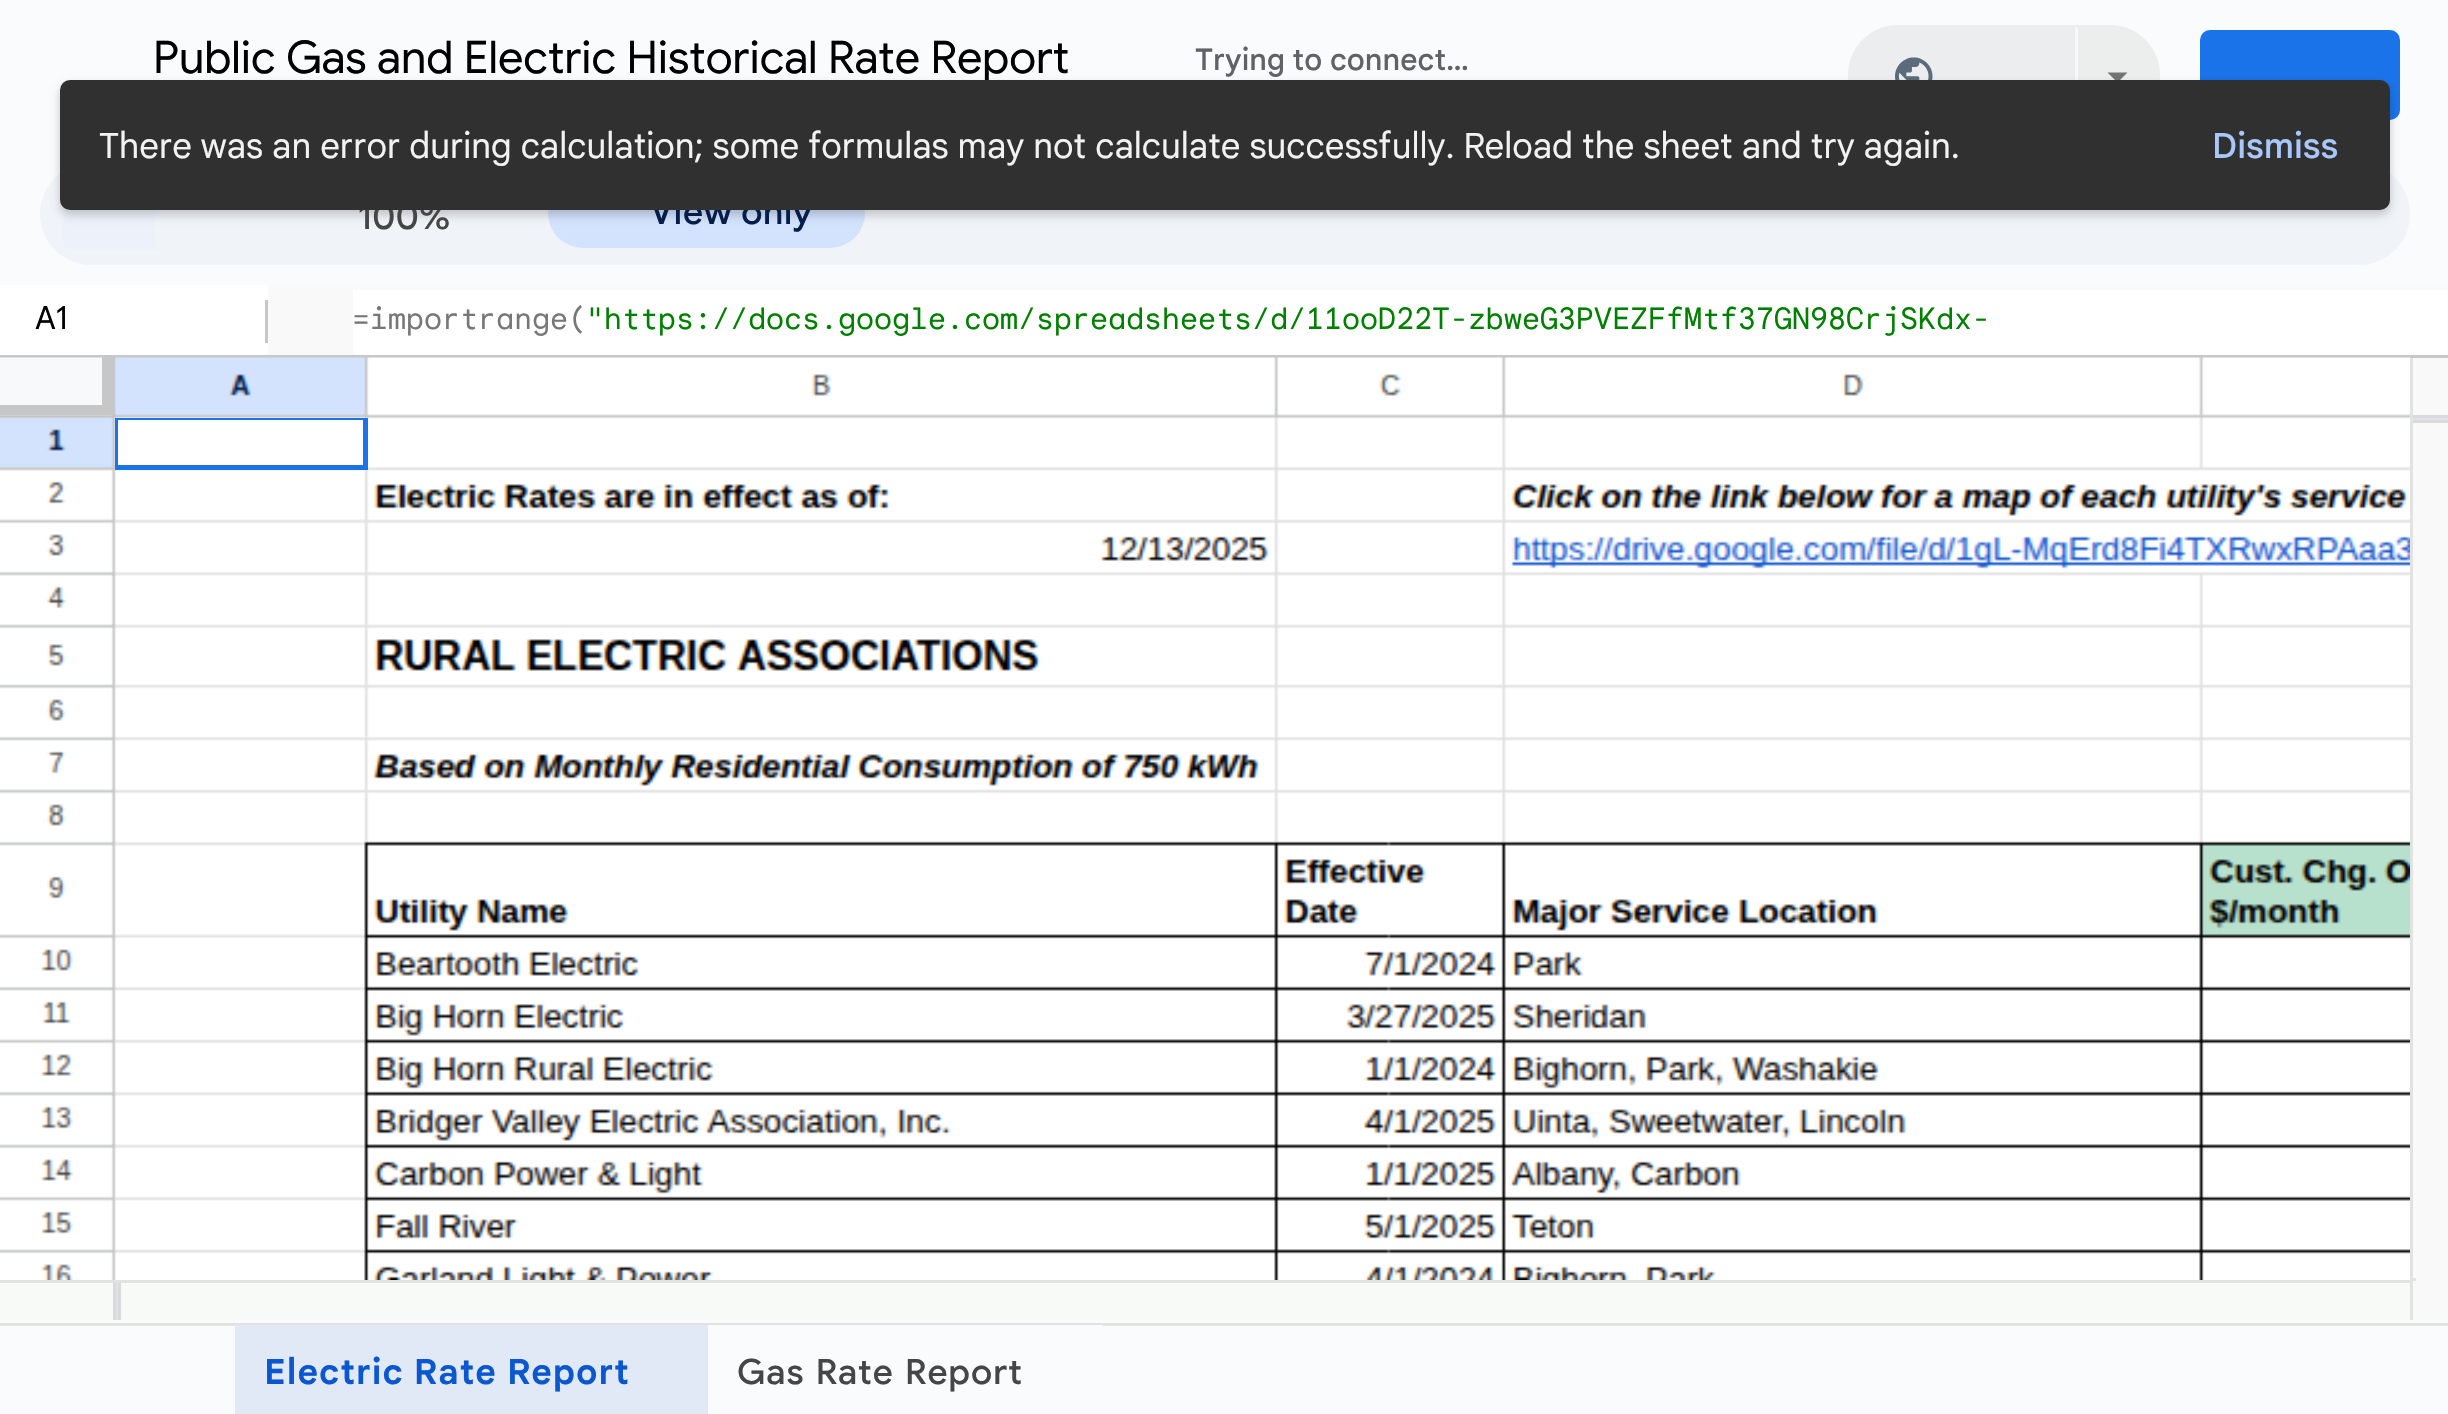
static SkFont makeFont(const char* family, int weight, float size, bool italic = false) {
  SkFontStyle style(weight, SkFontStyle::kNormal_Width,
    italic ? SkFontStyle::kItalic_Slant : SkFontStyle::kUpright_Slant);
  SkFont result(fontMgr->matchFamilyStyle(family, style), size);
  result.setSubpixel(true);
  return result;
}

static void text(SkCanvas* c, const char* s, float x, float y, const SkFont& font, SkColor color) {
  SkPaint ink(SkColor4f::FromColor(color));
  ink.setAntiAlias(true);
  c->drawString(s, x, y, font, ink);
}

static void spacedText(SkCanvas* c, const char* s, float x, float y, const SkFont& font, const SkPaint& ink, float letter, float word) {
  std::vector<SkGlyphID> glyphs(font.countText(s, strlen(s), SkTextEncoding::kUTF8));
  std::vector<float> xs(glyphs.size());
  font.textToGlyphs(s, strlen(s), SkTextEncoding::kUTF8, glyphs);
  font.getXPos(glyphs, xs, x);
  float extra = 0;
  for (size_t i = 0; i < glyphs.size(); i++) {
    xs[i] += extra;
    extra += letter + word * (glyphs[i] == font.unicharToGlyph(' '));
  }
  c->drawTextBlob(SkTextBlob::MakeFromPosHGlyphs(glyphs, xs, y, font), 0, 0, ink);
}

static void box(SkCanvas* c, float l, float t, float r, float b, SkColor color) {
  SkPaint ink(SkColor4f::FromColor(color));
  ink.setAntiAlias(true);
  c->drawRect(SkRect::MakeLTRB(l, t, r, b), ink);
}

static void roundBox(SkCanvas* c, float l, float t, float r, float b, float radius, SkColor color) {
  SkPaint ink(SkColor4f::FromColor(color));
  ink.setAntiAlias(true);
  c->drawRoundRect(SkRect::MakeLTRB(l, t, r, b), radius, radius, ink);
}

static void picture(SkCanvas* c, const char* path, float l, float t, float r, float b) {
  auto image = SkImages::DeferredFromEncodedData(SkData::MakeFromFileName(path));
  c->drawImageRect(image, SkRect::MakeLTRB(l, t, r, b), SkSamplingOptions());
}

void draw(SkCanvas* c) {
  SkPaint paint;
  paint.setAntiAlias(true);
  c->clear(0xfff9fbfd);
  SkFont face1 = makeFont("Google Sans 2", 400, 45);
  text(c, "Public Gas and Electric Historical Rate Report", 153, 73, face1, 0xff000000);
  SkFont face2 = makeFont("Google Sans", 500, 30);
  text(c, "Trying to connect…", 1195, 70, face2, 0xff5f6368);
  paint.setColor(0xffecedee);
  c->drawPath(SkPathBuilder().moveTo(1898, 25).lineTo(2078, 25).lineTo(2078, 125).lineTo(1898, 125).cubicTo(1870.5f, 125, 1848, 102.5f, 1848, 75).cubicTo(1848, 47.5f, 1870.5f, 25, 1898, 25).close().detach(), paint);
  picture(c, "img_01.png", 1895, 57, 1933, 80);
  paint.setColor(0x9ee4e4e4);
  c->drawPath(SkPathBuilder().moveTo(2075, 25).lineTo(2110, 25).cubicTo(2137.5f, 25, 2160, 47.5f, 2160, 75).cubicTo(2160, 102.5f, 2137.5f, 125, 2110, 125).lineTo(2075, 125).close().detach(), paint);
  paint.setColor(0xfff8f8f9);
  c->drawPath(SkPathBuilder().moveTo(2078, 28).lineTo(2075, 25).lineTo(2075, 125).lineTo(2078, 122).close().detach(), paint);
  paint.setColor(0xff727373);
  c->drawPath(SkPathBuilder().moveTo(2107.5f, 72.5f).lineTo(2127.5f, 72.5f).lineTo(2117.5f, 82.5f).close().detach(), paint);
  roundBox(c, 2200, 30, 2400, 120, 10, 0xff1a73e8);
  roundBox(c, 40, 163, 2410, 265, 51, 0xfff0f4f9);
  roundBox(c, 63, 180, 173, 250, 10, 0xffedf2fa);
  roundBox(c, 155, 178, 230, 253, 10, 0xfff0f4f9);
  roundBox(c, 548, 178, 865, 248, 35, 0xffd3e3fd);
  paint.setColor(0x33000000);
  paint.setMaskFilter(SkMaskFilter::MakeBlur(kNormal_SkBlurStyle, 5));
  c->drawRoundRect(SkRect::MakeLTRB(60, 85, 2390, 215), 10, 10, paint);
  paint.setMaskFilter(nullptr);
  SkFont face3 = makeFont("Google Sans", 500, 35);
  text(c, "100%", 358, 229, face3, 0xff444746);
  SkFont face4 = makeFont("Google Sans 2", 500, 35);
  paint.setColor(0xff041e49);
  spacedText(c, "View only", 650, 224, face4, paint, 0.6f, 0);
  roundBox(c, 60, 80, 2390, 210, 10, 0xff303030);
  SkFont face5 = makeFont("Google Sans", 400, 35);
  text(c, "There was an error during calculation; some formulas may not calculate successfully. Reload the sheet and try again.", 99, 158, face5, 0xfff2f2f2);
  text(c, "Dismiss", 2212, 158, face3, 0xffa8c7fa);
  box(c, 0, 285, 268, 355, 0xffffffff);
  SkFont face6 = makeFont("Google Sans", 400, 32);
  text(c, "A1", 35, 329, face6, 0xff000000);
  box(c, 265, 300, 268, 343, 0xffc7c7c7);
  box(c, 268, 285, 2448, 355, 0xfff9f9f9);
  box(c, 353, 290, 2448, 355, 0xffffffff);
  SkFont face7 = makeFont("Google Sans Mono", 400, 30);
  text(c, "=importrange(", 352, 329, face7, 0xff777777);
  text(c, "\"https://docs.google.com/spreadsheets/d/11ooD22T-zbweG3PVEZFfMtf37GN98CrjSKdx-", 586, 329, face7, 0xff008000);
  box(c, 0, 355, 2448, 358, 0xffc7c7c7);
  box(c, 0, 1283, 2410, 1320, 0xfff8faf8);
  picture(c, "img_02.png", 0, 357, 2410, 1280);
  box(c, 115, 418, 368, 420, 0xff1a73e8);
  box(c, 115, 465, 368, 470, 0xff1a73e8);
  box(c, 115, 418, 118, 470, 0xff1a73e8);
  box(c, 363, 418, 368, 470, 0xff1a73e8);
  box(c, 0, 405, 102, 415, 0xffc7c7c7);
  box(c, 102, 357, 113, 415, 0xffc7c7c7);
  box(c, 2413, 358, 2448, 1320, 0xfff9f9f9);
  box(c, 2410, 358, 2413, 1320, 0xffe1e3e1);
  box(c, 2413, 418, 2448, 420, 0xffdde3ea);
  box(c, 2413, 415, 2448, 418, 0xffdadada);
  box(c, 2413, 420, 2448, 423, 0xffdadada);
  box(c, 2413, 1278, 2416, 1281, 0xffe1e3e1);
  box(c, 0, 1280, 2410, 1283, 0xffe1e3e1);
  box(c, 116, 1283, 118, 1320, 0xffdde3ea);
  box(c, 118, 1283, 121, 1320, 0xffdadada);
  box(c, 113, 1283, 116, 1320, 0xffdadada);
  box(c, 0, 1323, 2448, 1326, 0xffe1e3e1);
  box(c, 235, 1325, 708, 1414, 0xffe1e9f7);
  SkFont face8 = makeFont("Google Sans", 700, 35);
  paint.setColor(0xff0b57d0);
  spacedText(c, "Electric Rate Report", 264, 1384, face8, paint, 1, 0);
  box(c, 708, 1325, 1103, 1326, 0xfff9fbfd);
  paint.setColor(0xff444746);
  spacedText(c, "Gas Rate Report", 737, 1384, face4, paint, 1, 2);
}
